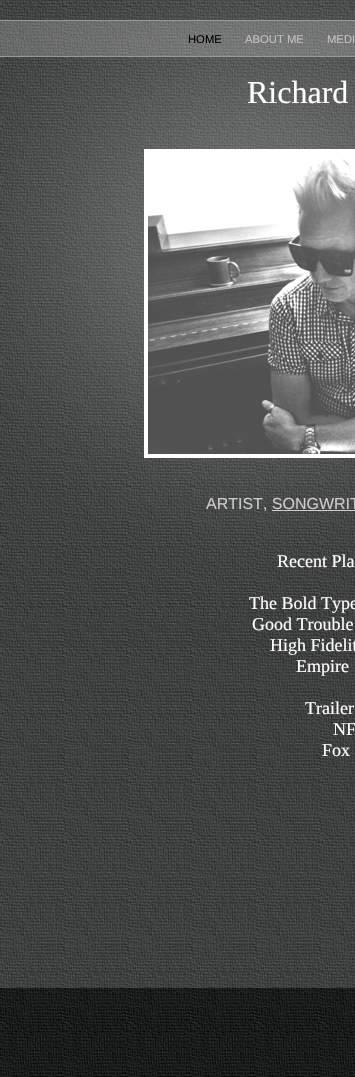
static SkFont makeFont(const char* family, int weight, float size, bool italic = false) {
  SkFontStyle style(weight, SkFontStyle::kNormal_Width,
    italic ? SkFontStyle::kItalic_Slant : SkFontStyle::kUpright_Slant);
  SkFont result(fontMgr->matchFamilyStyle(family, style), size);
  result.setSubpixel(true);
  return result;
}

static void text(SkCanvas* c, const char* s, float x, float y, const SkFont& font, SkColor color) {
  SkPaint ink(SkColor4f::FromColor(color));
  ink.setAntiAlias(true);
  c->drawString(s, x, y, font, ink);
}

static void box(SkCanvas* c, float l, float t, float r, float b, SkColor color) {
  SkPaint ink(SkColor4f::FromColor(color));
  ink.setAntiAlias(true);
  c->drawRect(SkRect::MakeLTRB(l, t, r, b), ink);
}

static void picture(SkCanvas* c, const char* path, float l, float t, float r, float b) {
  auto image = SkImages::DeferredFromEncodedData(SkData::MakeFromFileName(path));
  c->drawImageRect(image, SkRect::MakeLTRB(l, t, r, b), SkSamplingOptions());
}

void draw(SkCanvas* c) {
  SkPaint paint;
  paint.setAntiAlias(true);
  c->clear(0xffffffff);
  picture(c, "img_01.png", 0, 988, 355, 1077);
  picture(c, "img_02.png", 0, 620, 355, 988);
  picture(c, "img_03.png", 0, 0, 355, 620);
  box(c, 0, 21, 355, 56, 0x33ffffff);
  box(c, 0, 20, 355, 21, 0xff999999);
  box(c, 0, 56, 355, 57, 0xff999999);
  SkFont face1 = makeFont("Liberation Sans", 400, 11.25f);
  text(c, "HOME", 188, 43, face1, 0xff000000);
  text(c, "ABOUT ME", 245, 43, face1, 0xffc1c1c1);
  text(c, "MEDI", 327, 43, face1, 0xffc1c1c1);
  SkFont face2 = makeFont("Liberation Serif", 400, 32);
  text(c, "Richard", 247, 103, face2, 0xffffffff);
  box(c, 144, 149, 148, 454, 0xffffffff);
  box(c, 148, 149, 355, 151, 0xffffffff);
  picture(c, "img_04.png", 148, 151, 355, 454);
  box(c, 144, 454, 355, 458, 0xffffffff);
  SkFont face3 = makeFont("Liberation Sans", 400, 16);
  text(c, "ARTIST, SONGWRIT", 206, 509, face3, 0xffcbcbcb);
  box(c, 272, 510, 355, 511, 0xffcbcbcb);
  SkFont face4 = makeFont("Liberation Serif", 400, 18);
  text(c, "Recent Pla", 277, 567, face4, 0xffffffff);
  text(c, "The Bold Type", 249, 609, face4, 0xffffffff);
  text(c, "Good Trouble", 252, 630, face4, 0xffffffff);
  text(c, "High Fidelit", 270, 651, face4, 0xffffffff);
  text(c, "Empire", 296, 672, face4, 0xffffffff);
  text(c, "Trailer", 305, 714, face4, 0xffffffff);
  text(c, "NF", 333, 735, face4, 0xffffffff);
  text(c, "Fox", 322, 756, face4, 0xffffffff);
}
